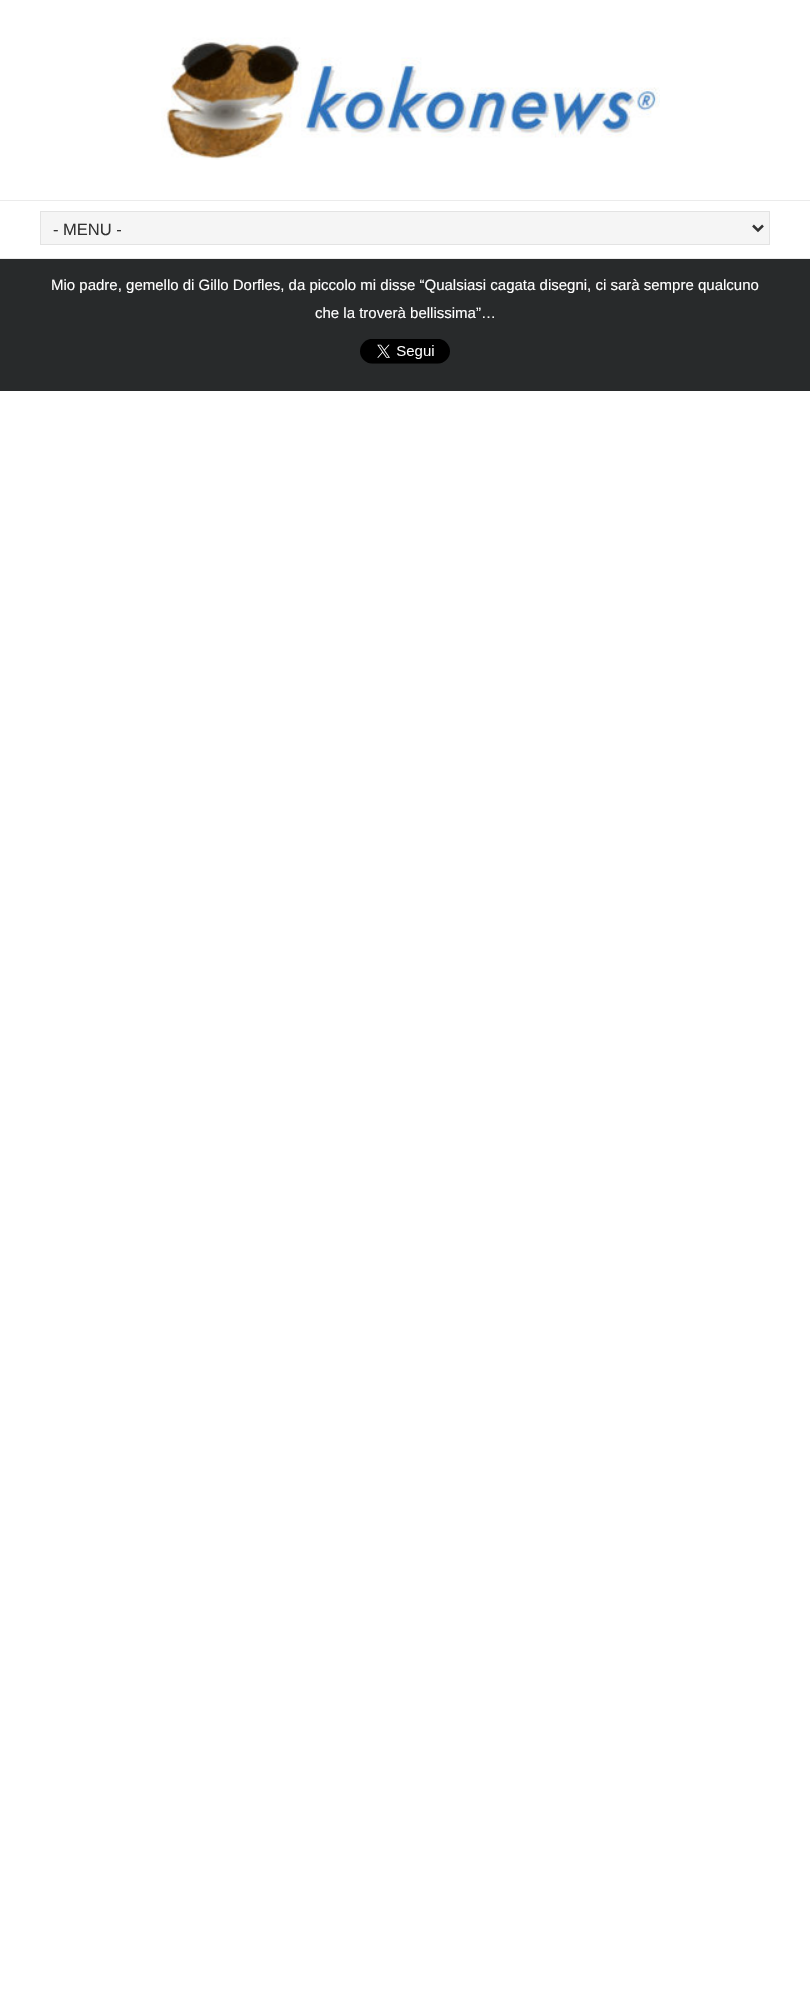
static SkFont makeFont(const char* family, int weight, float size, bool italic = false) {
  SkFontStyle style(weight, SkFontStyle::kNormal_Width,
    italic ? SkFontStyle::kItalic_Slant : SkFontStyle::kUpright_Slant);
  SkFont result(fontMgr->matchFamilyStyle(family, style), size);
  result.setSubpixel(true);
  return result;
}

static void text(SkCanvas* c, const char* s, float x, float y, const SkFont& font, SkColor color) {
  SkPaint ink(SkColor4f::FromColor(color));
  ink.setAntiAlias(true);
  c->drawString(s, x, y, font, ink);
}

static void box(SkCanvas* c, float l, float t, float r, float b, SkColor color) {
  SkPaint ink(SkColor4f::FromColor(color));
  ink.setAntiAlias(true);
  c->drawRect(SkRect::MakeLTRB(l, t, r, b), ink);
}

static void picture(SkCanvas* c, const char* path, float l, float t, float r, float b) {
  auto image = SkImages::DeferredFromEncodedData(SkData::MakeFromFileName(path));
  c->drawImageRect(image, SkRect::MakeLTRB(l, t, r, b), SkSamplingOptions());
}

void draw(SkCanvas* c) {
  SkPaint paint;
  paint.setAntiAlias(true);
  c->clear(0xffffffff);
  box(c, 0, 200, 810, 201, 0xffebebeb);
  picture(c, "img_01.png", 161, 37, 660, 160);
  box(c, 0, 258, 810, 259, 0xffebebeb);
  paint.setColor(0xfff5f5f5);
  c->drawRect(SkRect::MakeLTRB(40.5f, 211.5f, 769.5f, 244.5f), paint);
  paint.setStyle(SkPaint::kStroke_Style);
  paint.setStrokeWidth(1);
  paint.setColor(0xffe3e3e3);
  c->drawRect(SkRect::MakeLTRB(40.5f, 211.5f, 769.5f, 244.5f), paint);
  paint.setStrokeWidth(2.5f);
  paint.setColor(0xff333333);
  c->drawPath(SkPathBuilder().moveTo(753, 225.5f).lineTo(758, 230.5f).lineTo(763, 225.5f).detach(), paint);
  SkFont face1 = makeFont("Liberation Sans", 400, 16.5f);
  text(c, "- MENU -", 53, 235, face1, 0xff333333);
  box(c, 0, 259, 810, 391, 0xff282a2b);
  SkFont face2 = makeFont("Liberation Sans", 400, 15);
  text(c, "Mio padre, gemello di Gillo Dorfles, da piccolo mi disse “Qualsiasi cagata disegni, ci sarà sempre qualcuno", 51, 290, face2, 0xffffffff);
  text(c, "che la troverà bellissima”…", 315, 318, face2, 0xffffffff);
  picture(c, "img_02.png", 360, 339, 450, 364);
}
